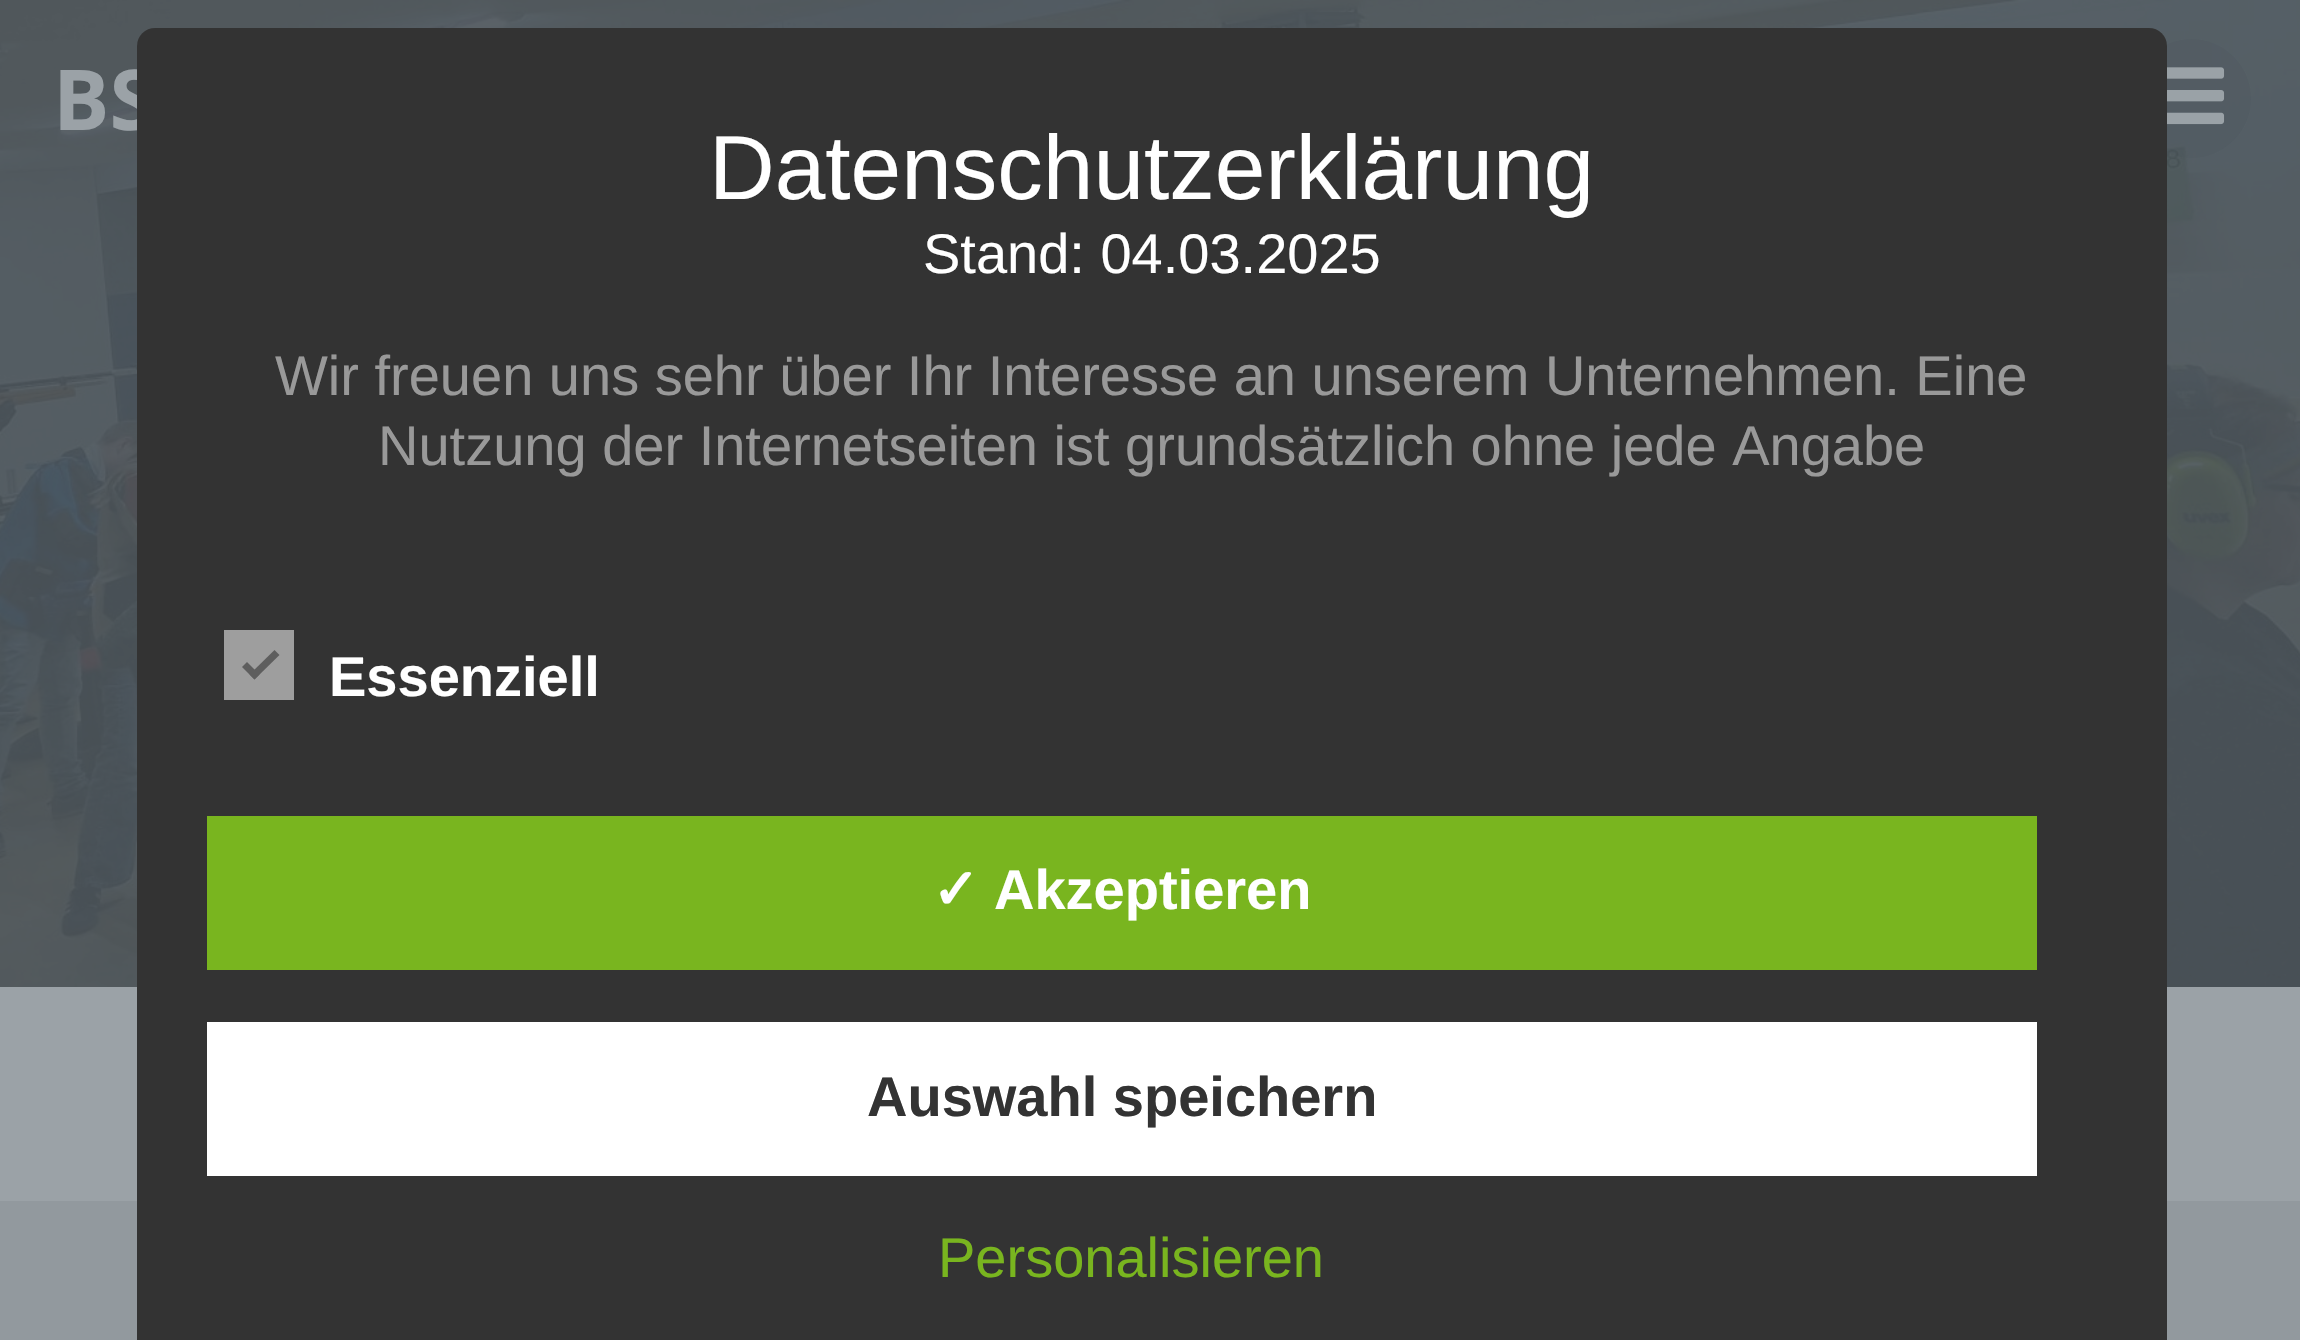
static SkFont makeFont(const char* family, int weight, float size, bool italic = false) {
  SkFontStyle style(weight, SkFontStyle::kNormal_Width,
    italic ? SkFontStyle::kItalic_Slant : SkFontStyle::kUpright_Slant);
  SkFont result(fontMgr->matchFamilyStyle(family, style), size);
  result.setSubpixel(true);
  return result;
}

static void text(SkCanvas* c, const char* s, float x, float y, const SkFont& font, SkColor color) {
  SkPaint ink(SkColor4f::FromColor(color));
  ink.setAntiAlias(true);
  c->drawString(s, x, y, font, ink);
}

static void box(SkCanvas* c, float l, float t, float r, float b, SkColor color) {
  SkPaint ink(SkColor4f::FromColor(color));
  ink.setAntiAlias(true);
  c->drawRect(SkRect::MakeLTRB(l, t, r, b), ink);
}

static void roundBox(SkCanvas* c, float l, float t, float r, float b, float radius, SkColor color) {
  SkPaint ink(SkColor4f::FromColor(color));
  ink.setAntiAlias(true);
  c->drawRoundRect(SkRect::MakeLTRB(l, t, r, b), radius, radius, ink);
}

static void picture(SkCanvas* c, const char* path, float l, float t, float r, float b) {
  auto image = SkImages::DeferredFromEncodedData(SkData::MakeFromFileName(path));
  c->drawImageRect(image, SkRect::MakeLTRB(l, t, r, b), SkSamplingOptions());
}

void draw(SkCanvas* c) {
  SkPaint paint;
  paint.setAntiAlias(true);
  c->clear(0xff9ba2a7);
  picture(c, "img_01.png", 0, 0, 2300, 987);
  SkFont face1 = makeFont("Open Sans", 700, 84);
  text(c, "BS", 53, 130, face1, 0xff9ba2a7);
  paint.setColor(0x1a3f464b);
  c->drawCircle(2191.5f, 98.5f, 59.5f, paint);
  picture(c, "img_02.png", 2167, 67, 2225, 125);
  box(c, 0, 1201, 2300, 1340, 0xff92999e);
  roundBox(c, 137, 28, 2167, 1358, 18, 0xff333333);
  SkFont face2 = makeFont("Liberation Sans", 400, 91);
  text(c, "Datenschutzerklärung", 709, 199, face2, 0xffffffff);
  SkFont face3 = makeFont("Liberation Sans", 400, 56);
  text(c, "Stand: 04.03.2025", 923, 273, face3, 0xffffffff);
  text(c, "Wir freuen uns sehr über Ihr Interesse an unserem Unternehmen. Eine", 275, 395, face3, 0xff999999);
  text(c, "Nutzung der Internetseiten ist grundsätzlich ohne jede Angabe", 378, 465, face3, 0xff999999);
  box(c, 224, 630, 294, 700, 0xff9e9e9e);
  paint.setColor(0xff5e5e5e);
  c->drawPath(SkPathBuilder().moveTo(274.5f, 650).lineTo(279.5f, 655).lineTo(254.5f, 679.5f).lineTo(249.5f, 674.5f).close().detach(), paint);
  c->drawPath(SkPathBuilder().moveTo(247, 662).lineTo(259.5f, 674.5f).lineTo(254.5f, 679.5f).lineTo(242, 667).close().detach(), paint);
  SkFont face4 = makeFont("Liberation Sans", 700, 56);
  text(c, "Essenziell", 329, 696, face4, 0xffffffff);
  box(c, 207, 816, 2037, 970, 0xff79b51f);
  SkFont face5 = makeFont("DejaVu Sans", 700, 56);
  text(c, "✓", 932, 909, face5, 0xffffffff);
  text(c, "Akzeptieren", 994, 909, face4, 0xffffffff);
  box(c, 207, 1022, 2037, 1176, 0xffffffff);
  text(c, "Auswahl speichern", 867, 1116, face4, 0xff333333);
  text(c, "Personalisieren", 938, 1277, face3, 0xff79b51f);
}
